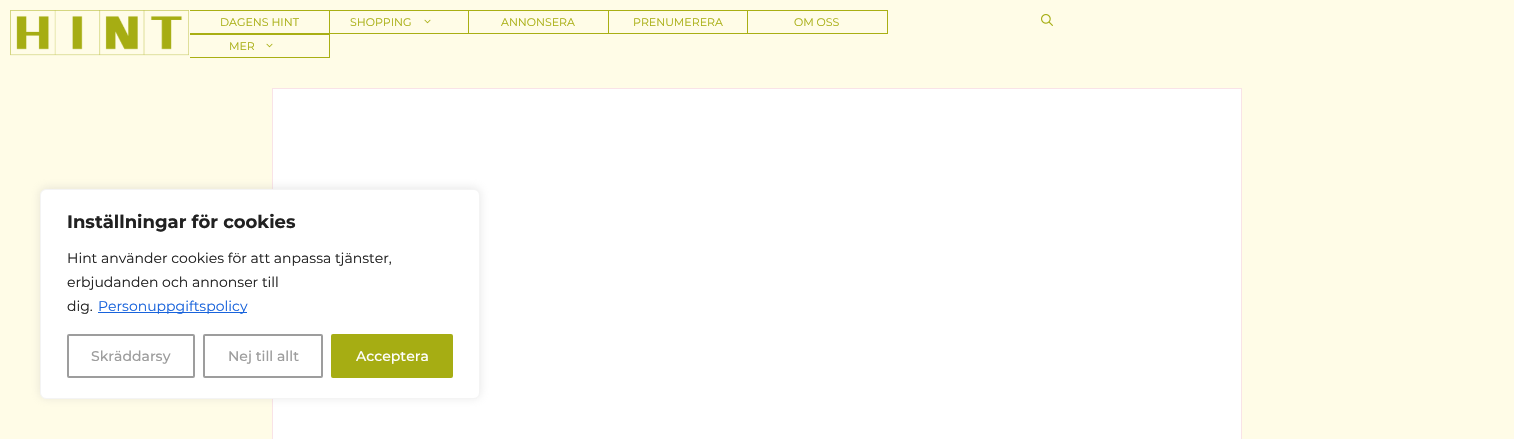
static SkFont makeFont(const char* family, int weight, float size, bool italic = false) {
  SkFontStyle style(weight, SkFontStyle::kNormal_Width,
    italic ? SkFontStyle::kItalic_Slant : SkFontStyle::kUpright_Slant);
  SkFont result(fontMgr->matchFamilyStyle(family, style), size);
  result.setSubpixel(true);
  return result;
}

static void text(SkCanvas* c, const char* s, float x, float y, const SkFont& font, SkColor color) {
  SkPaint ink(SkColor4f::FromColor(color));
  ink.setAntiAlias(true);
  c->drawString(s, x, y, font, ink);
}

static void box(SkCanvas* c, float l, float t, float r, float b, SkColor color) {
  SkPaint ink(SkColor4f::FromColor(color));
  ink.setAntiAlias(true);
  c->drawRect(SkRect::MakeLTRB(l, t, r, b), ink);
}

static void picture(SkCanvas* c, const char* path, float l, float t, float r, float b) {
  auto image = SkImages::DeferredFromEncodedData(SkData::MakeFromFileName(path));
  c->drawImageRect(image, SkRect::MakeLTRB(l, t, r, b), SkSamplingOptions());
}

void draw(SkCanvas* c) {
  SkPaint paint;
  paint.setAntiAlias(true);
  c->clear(0xfffffce7);
  picture(c, "img_01.png", 10, 10, 189, 56);
  box(c, 190, 10, 330, 11, 0xffa9af14);
  box(c, 329, 10, 330, 34, 0xffa9af14);
  box(c, 190, 33, 330, 35, 0xffa9af14);
  SkFont face1 = makeFont("Montserrat", 400, 11);
  text(c, "DAGENS HINT", 220, 26, face1, 0xffa9af14);
  box(c, 329, 10, 609, 11, 0xffa9af14);
  box(c, 468, 10, 469, 34, 0xffa9af14);
  box(c, 329, 33, 469, 34, 0xffa9af14);
  text(c, "SHOPPING", 350, 26, face1, 0xffa9af14);
  picture(c, "img_02.png", 424, 19, 431, 24);
  box(c, 608, 10, 609, 34, 0xffa9af14);
  box(c, 469, 33, 609, 34, 0xffa9af14);
  text(c, "ANNONSERA", 501, 26, face1, 0xffa9af14);
  box(c, 608, 10, 888, 11, 0xffa9af14);
  box(c, 747, 10, 748, 34, 0xffa9af14);
  box(c, 608, 33, 748, 34, 0xffa9af14);
  text(c, "PRENUMERERA", 633, 26, face1, 0xffa9af14);
  box(c, 887, 10, 888, 34, 0xffa9af14);
  box(c, 748, 33, 888, 34, 0xffa9af14);
  text(c, "OM OSS", 794, 26, face1, 0xffa9af14);
  box(c, 329, 34, 330, 58, 0xffa9af14);
  box(c, 190, 57, 330, 58, 0xffa9af14);
  text(c, "MER", 229, 50, face1, 0xffa9af14);
  picture(c, "img_02.png", 266, 43, 273, 48);
  picture(c, "img_03.png", 1041, 14, 1053, 26);
  paint.setColor(0xffffffff);
  c->drawRect(SkRect::MakeLTRB(272.5f, 88.5f, 1241.5f, 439.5f), paint);
  paint.setStyle(SkPaint::kStroke_Style);
  paint.setStrokeWidth(1);
  paint.setColor(0xfff9e3e7);
  c->drawRect(SkRect::MakeLTRB(272.5f, 88.5f, 1241.5f, 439.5f), paint);
  paint.setStyle(SkPaint::kFill_Style);
  paint.setColor(0x4dacabab);
  paint.setMaskFilter(SkMaskFilter::MakeBlur(kNormal_SkBlurStyle, 5));
  c->drawRoundRect(SkRect::MakeLTRB(40, 188, 480, 398), 6, 6, paint);
  paint.setMaskFilter(nullptr);
  paint.setColor(0xffffffff);
  c->drawRoundRect(SkRect::MakeLTRB(40.5f, 189.5f, 479.5f, 398.5f), 5.5f, 5.5f, paint);
  paint.setStyle(SkPaint::kStroke_Style);
  paint.setColor(0xfff4f4f4);
  c->drawRoundRect(SkRect::MakeLTRB(40.5f, 189.5f, 479.5f, 398.5f), 5.5f, 5.5f, paint);
  SkFont face2 = makeFont("Montserrat", 700, 18);
  text(c, "Inställningar för cookies", 67, 228, face2, 0xff212121);
  SkFont face3 = makeFont("Montserrat", 400, 14);
  text(c, "Hint använder cookies för att anpassa tjänster,", 67, 263, face3, 0xff212121);
  text(c, "erbjudanden och annonser till", 67, 287, face3, 0xff212121);
  text(c, "dig.", 67, 311, face3, 0xff212121);
  box(c, 98, 312, 247, 313, 0xff1863dc);
  text(c, "Personuppgiftspolicy", 98, 311, face3, 0xff1863dc);
  paint.setStrokeWidth(2);
  paint.setColor(0xff9d9d9d);
  c->drawRoundRect(SkRect::MakeLTRB(68, 335, 194, 377), 1, 1, paint);
  SkFont face4 = makeFont("Montserrat", 500, 14);
  text(c, "Skräddarsy", 91, 361, face4, 0xff9d9d9d);
  c->drawRoundRect(SkRect::MakeLTRB(204, 335, 322, 377), 1, 1, paint);
  text(c, "Nej till allt", 228, 361, face4, 0xff9d9d9d);
  paint.setStyle(SkPaint::kFill_Style);
  paint.setColor(0xffa6ad13);
  c->drawRoundRect(SkRect::MakeLTRB(332, 335, 452, 377), 1, 1, paint);
  paint.setStyle(SkPaint::kStroke_Style);
  c->drawRoundRect(SkRect::MakeLTRB(332, 335, 452, 377), 1, 1, paint);
  text(c, "Acceptera", 356, 361, face4, 0xffffffff);
}
